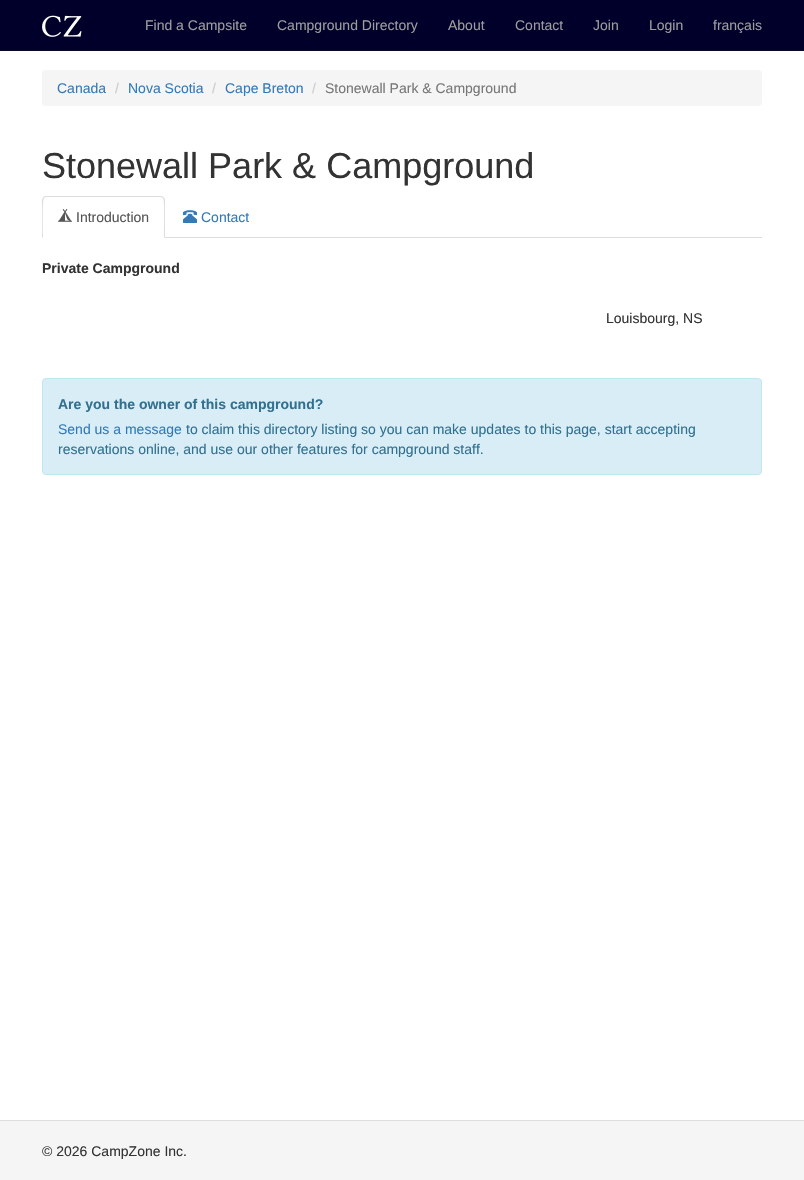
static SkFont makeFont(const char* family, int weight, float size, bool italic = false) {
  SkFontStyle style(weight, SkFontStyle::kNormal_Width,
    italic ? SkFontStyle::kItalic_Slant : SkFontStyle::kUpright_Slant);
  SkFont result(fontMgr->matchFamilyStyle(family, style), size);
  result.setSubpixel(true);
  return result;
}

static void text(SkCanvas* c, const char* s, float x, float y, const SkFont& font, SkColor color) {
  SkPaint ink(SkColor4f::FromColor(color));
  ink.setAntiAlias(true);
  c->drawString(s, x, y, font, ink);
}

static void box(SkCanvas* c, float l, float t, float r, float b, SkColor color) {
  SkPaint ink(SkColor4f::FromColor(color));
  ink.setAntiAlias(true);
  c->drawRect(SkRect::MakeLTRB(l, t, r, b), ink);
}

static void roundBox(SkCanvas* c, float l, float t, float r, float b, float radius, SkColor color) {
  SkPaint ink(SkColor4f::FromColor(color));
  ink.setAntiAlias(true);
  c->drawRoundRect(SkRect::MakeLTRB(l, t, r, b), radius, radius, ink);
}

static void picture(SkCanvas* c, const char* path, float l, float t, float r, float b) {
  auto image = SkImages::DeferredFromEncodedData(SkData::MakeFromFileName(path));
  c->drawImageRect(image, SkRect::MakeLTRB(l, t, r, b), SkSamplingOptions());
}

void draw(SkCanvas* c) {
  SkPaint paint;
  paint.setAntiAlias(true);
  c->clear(0xffffffff);
  box(c, 0, 0, 804, 50, 0xff00002b);
  box(c, 0, 50, 804, 51, 0xff080828);
  picture(c, "img_01.png", 42, 15, 82, 37);
  SkFont face1 = makeFont("Liberation Sans", 400, 14);
  text(c, "Find a Campsite", 145, 30, face1, 0xff9d9d9d);
  text(c, "Campground Directory", 277, 30, face1, 0xff9d9d9d);
  text(c, "About", 448, 30, face1, 0xff9d9d9d);
  text(c, "Contact", 515, 30, face1, 0xff9d9d9d);
  text(c, "Join", 593, 30, face1, 0xff9d9d9d);
  text(c, "Login", 649, 30, face1, 0xff9d9d9d);
  text(c, "français", 713, 30, face1, 0xff9d9d9d);
  roundBox(c, 42, 70, 762, 106, 4, 0xfff5f5f5);
  text(c, "Canada", 57, 93, face1, 0xff337ab7);
  text(c, "/", 115, 93, face1, 0xffcccccc);
  text(c, "Nova Scotia", 128, 93, face1, 0xff337ab7);
  text(c, "/", 212, 93, face1, 0xffcccccc);
  text(c, "Cape Breton", 225, 93, face1, 0xff337ab7);
  text(c, "/", 312, 93, face1, 0xffcccccc);
  text(c, "Stonewall Park & Campground", 325, 93, face1, 0xff777777);
  SkFont face2 = makeFont("Liberation Sans", 400, 36);
  text(c, "Stonewall Park & Campground", 42, 178, face2, 0xff333333);
  box(c, 165, 237, 762, 238, 0xffdddddd);
  paint.setColor(0xffdddddd);
  c->drawPath(SkPathBuilder().moveTo(46, 196).lineTo(43, 197).lineTo(44, 198).lineTo(46, 197).lineTo(161, 197).lineTo(163, 198).lineTo(164, 197).lineTo(161, 196).close().detach(), paint);
  c->drawPath(SkPathBuilder().moveTo(165, 238).lineTo(165, 200).cubicTo(165, 199, 164, 198, 164, 197).lineTo(163, 198).cubicTo(165, 200, 164, 232, 164, 237).close().detach(), paint);
  c->drawPath(SkPathBuilder().moveTo(42, 238).lineTo(43, 237).cubicTo(43, 232, 42, 200, 44, 198).lineTo(43, 197).lineTo(42, 200).close().detach(), paint);
  picture(c, "img_02.png", 58, 209, 72, 222);
  text(c, "Introduction", 76, 222, face1, 0xff555555);
  picture(c, "img_03.png", 183, 210, 197, 223);
  text(c, "Contact", 201, 222, face1, 0xff337ab7);
  SkFont face3 = makeFont("Liberation Sans", 700, 14);
  text(c, "Private Campground", 42, 273, face3, 0xff333333);
  text(c, "Louisbourg, NS", 606, 323, face1, 0xff333333);
  paint.setColor(0xffd9edf7);
  c->drawRoundRect(SkRect::MakeLTRB(42.5f, 378.5f, 761.5f, 474.5f), 3.5f, 3.5f, paint);
  paint.setStyle(SkPaint::kStroke_Style);
  paint.setStrokeWidth(1);
  paint.setColor(0xffbce8f1);
  c->drawRoundRect(SkRect::MakeLTRB(42.5f, 378.5f, 761.5f, 474.5f), 3.5f, 3.5f, paint);
  text(c, "Are you the owner of this campground?", 58, 409, face3, 0xff31708f);
  text(c, "Send us a message", 58, 434, face1, 0xff337ab7);
  text(c, "to claim this directory listing so you can make updates to this page, start accepting", 186, 434, face1, 0xff31708f);
  text(c, "reservations online, and use our other features for campground staff.", 58, 454, face1, 0xff31708f);
  box(c, 0, 1121, 804, 1180, 0xfff5f5f5);
  box(c, 0, 1120, 804, 1121, 0xffdddddd);
  text(c, "© 2026 CampZone Inc.", 42, 1156, face1, 0xff333333);
}
